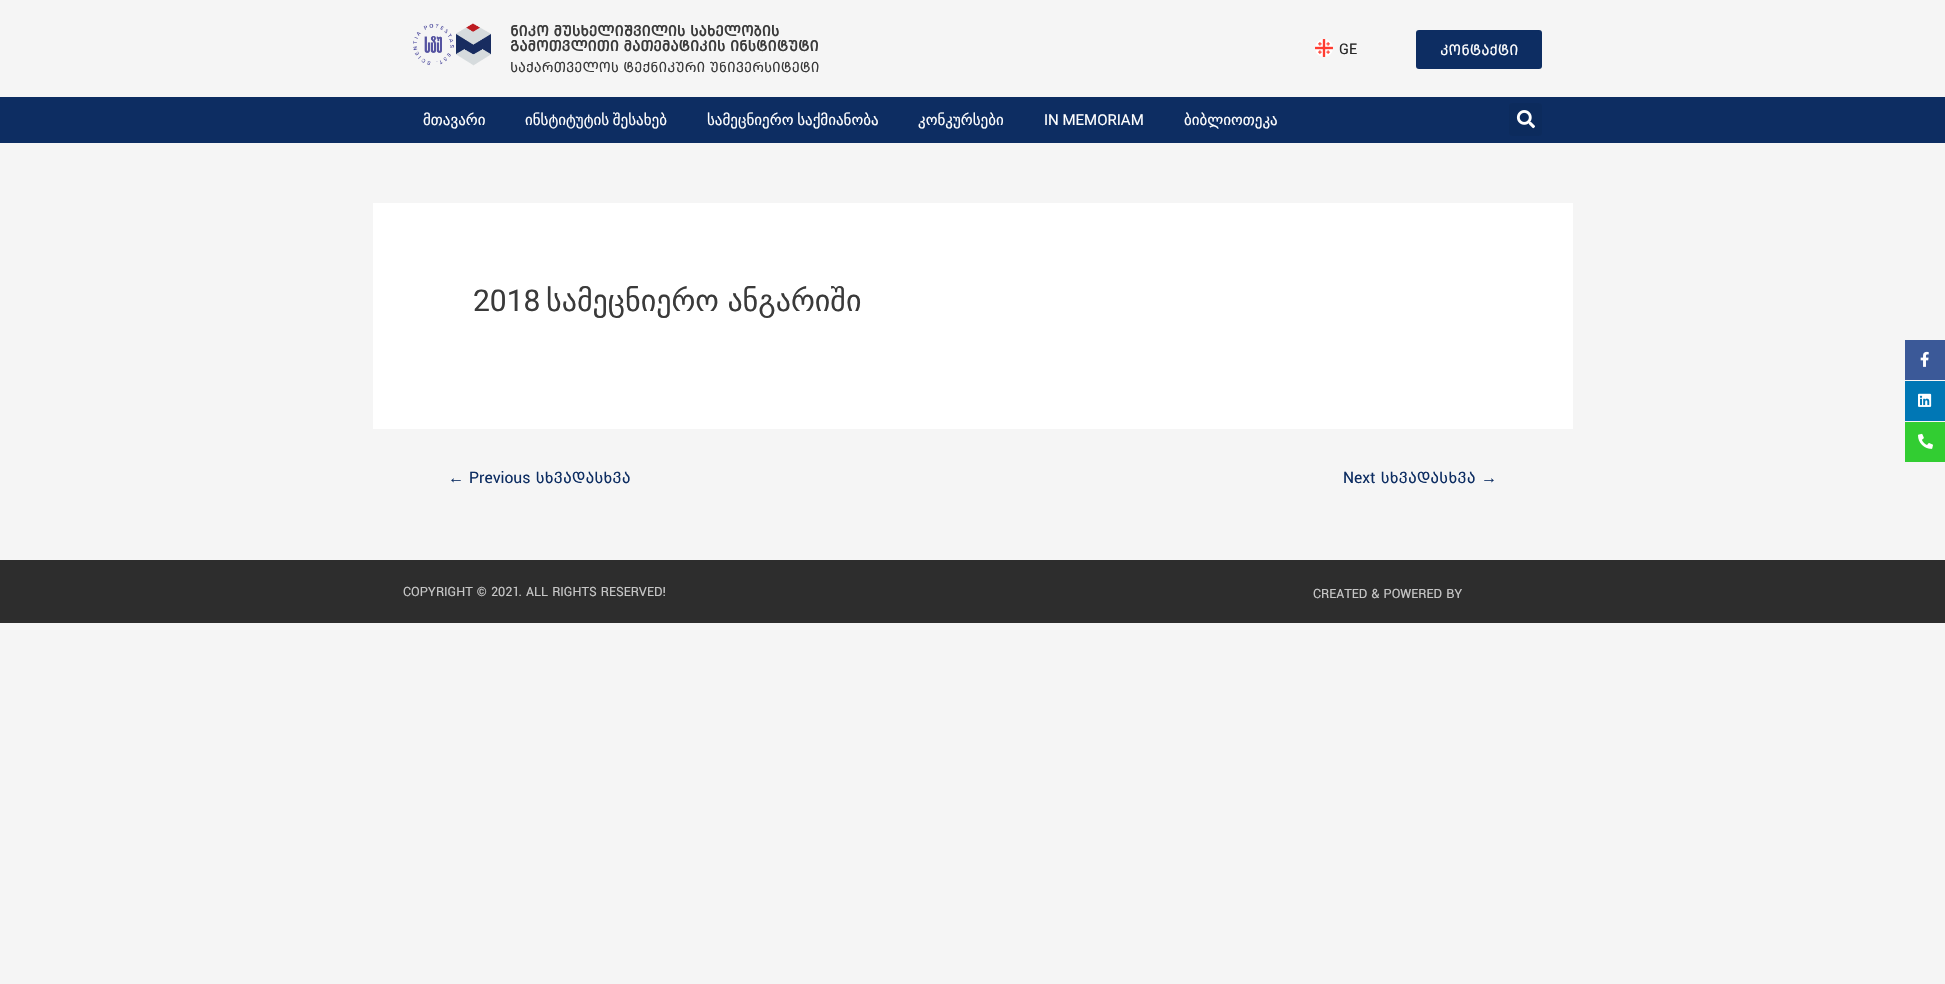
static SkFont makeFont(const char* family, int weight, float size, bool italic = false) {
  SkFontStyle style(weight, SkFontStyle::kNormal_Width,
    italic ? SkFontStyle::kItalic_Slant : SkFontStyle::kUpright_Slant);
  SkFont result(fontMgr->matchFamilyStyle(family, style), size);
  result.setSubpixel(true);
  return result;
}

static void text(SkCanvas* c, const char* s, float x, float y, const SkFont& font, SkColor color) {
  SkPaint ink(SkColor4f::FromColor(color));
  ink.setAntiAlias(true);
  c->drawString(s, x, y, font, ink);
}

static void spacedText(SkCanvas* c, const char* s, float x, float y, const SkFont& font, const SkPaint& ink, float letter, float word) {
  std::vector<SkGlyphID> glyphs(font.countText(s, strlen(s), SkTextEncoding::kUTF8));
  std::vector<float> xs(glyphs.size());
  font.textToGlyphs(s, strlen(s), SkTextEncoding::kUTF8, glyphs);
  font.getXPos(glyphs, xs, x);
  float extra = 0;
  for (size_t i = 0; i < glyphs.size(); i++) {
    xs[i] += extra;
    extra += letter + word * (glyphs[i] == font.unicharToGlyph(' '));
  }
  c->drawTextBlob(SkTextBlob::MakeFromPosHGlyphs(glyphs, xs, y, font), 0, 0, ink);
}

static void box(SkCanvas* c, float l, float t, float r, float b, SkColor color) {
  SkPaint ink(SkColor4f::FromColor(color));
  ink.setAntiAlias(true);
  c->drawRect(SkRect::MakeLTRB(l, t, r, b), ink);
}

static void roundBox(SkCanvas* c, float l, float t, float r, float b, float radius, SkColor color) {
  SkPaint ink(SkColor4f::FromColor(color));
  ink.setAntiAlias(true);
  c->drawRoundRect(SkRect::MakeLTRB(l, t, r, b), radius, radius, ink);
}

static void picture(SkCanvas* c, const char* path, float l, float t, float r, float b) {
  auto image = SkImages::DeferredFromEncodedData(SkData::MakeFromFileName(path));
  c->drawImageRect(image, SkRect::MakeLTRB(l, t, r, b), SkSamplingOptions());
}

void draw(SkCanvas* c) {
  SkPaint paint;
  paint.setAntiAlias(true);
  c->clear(0xfff5f5f5);
  picture(c, "img_01.png", 413, 23, 491, 66);
  SkFont face1 = makeFont("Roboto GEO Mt", 700, 15);
  text(c, "ნიკო მუსხელიშვილის სახელობის", 510, 36, face1, 0xff3a3a3a);
  text(c, "გამოთვლითი მათემატიკის ინსტიტუტი", 510, 51, face1, 0xff3a3a3a);
  SkFont face2 = makeFont("Roboto GEO Mt", 400, 14.3f);
  text(c, "საქართველოს ტექნიკური უნივერსიტეტი", 510, 72, face2, 0xff3a3a3a);
  picture(c, "img_02.png", 1315, 39, 1333, 57);
  SkFont face3 = makeFont("Roboto GEO Mt", 400, 15);
  text(c, "GE", 1339, 54, face3, 0xff282828);
  roundBox(c, 1416, 30, 1542, 69, 3, 0xff0d2d62);
  text(c, "კონტაქტი", 1440, 55, face3, 0xffffffff);
  box(c, 0, 97, 1945, 143, 0xff0d2d62);
  SkFont face4 = makeFont("DejaVu Sans", 400, 15);
  text(c, "მთავარი", 423, 125, face4, 0xffffffff);
  paint.setColor(0xffffffff);
  spacedText(c, "ინსტიტუტის შესახებ", 525, 125, face4, paint, 0, -1);
  spacedText(c, "სამეცნიერო საქმიანობა", 707, 125, face4, paint, 0, -1);
  text(c, "კონკურსები", 918, 125, face4, 0xffffffff);
  SkFont face5 = makeFont("Roboto", 400, 15);
  text(c, "IN MEMORIAM", 1044, 125, face5, 0xffffffff);
  text(c, "ბიბლიოთეკა", 1184, 125, face4, 0xffffffff);
  roundBox(c, 1509, 103, 1542, 136, 3, 0xff0c2b5d);
  picture(c, "img_03.png", 1516, 110, 1535, 129);
  box(c, 373, 203, 1573, 429, 0xffffffff);
  SkFont face6 = makeFont("Roboto", 400, 30);
  text(c, "2018", 473, 311, face6, 0xff3a3a3a);
  SkFont face7 = makeFont("DejaVu Sans", 400, 30);
  paint.setColor(0xff3a3a3a);
  spacedText(c, "სამეცნიერო ანგარიში", 546, 311, face7, paint, 0, -1);
  SkFont face8 = makeFont("Liberation Serif", 400, 16);
  text(c, "←", 448, 483, face8, 0xff0d2d62);
  SkFont face9 = makeFont("Roboto GEO Mt", 400, 16);
  text(c, "Previous სხვადასხვა", 469, 483, face9, 0xff0d2d62);
  text(c, "Next სხვადასხვა", 1343, 483, face9, 0xff0d2d62);
  text(c, "→", 1481, 483, face8, 0xff0d2d62);
  box(c, 0, 560, 1945, 623, 0xff2d2d2d);
  box(c, 1905, 340, 1945, 380, 0xff3b5998);
  picture(c, "img_04.png", 1920, 351, 1929, 367);
  box(c, 1905, 381, 1945, 421, 0xff0077b5);
  picture(c, "img_05.png", 1918, 393, 1932, 407);
  box(c, 1905, 422, 1945, 462, 0xff32cd32);
  picture(c, "img_06.png", 1918, 433, 1933, 449);
  SkFont face10 = makeFont("Roboto GEO Mt", 400, 13);
  text(c, "COPYRIGHT © 2021. ALL RIGHTS RESERVED!", 403, 596, face10, 0xffc6c6c6);
  text(c, "CREATED & POWERED BY", 1313, 598, face10, 0xffc6c6c6);
}
